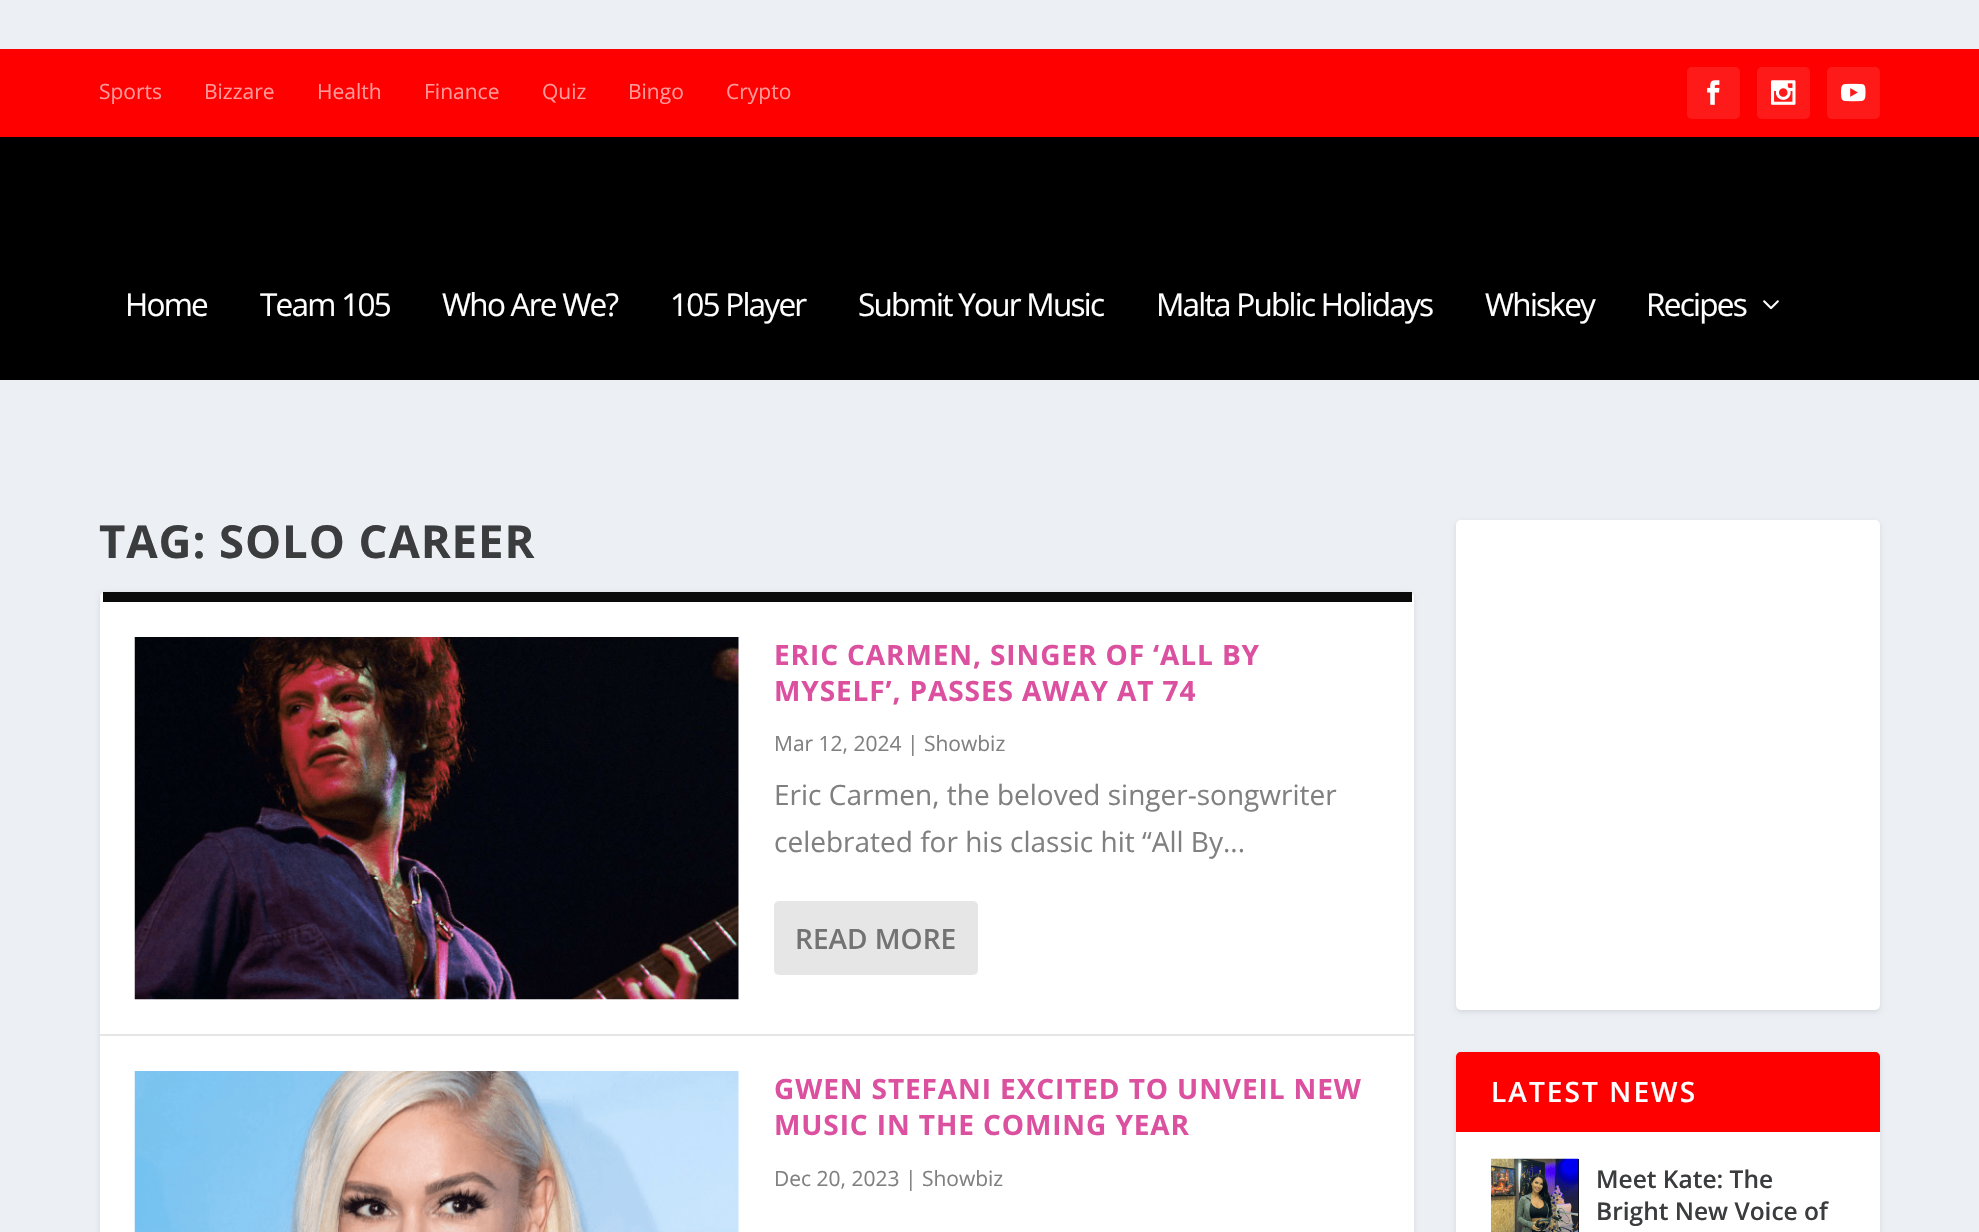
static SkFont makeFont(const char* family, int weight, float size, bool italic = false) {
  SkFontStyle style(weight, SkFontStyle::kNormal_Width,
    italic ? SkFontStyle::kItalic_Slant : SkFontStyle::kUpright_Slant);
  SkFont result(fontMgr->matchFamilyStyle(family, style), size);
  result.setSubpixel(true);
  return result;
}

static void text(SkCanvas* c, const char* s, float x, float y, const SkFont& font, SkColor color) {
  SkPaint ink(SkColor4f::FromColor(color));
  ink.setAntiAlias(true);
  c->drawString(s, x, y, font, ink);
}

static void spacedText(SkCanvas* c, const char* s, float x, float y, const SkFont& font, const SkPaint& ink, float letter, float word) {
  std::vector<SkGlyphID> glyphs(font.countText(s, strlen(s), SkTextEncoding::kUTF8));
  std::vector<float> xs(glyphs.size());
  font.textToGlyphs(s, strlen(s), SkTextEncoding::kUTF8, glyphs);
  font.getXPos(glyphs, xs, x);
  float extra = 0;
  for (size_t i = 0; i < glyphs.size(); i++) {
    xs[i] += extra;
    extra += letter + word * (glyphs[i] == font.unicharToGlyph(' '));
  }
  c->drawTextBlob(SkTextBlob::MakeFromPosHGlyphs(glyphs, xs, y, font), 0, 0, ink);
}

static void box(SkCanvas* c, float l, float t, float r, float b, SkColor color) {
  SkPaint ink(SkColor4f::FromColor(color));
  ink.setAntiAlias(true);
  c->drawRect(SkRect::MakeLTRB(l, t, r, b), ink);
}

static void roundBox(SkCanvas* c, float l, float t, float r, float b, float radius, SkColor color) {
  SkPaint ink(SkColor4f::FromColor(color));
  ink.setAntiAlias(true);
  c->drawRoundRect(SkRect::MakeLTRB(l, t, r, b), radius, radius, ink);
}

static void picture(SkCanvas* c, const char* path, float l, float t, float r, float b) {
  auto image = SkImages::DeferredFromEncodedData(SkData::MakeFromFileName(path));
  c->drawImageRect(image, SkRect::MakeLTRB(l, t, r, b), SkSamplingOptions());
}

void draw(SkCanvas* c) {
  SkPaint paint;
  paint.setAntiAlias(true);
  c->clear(0xffecf0f5);
  box(c, 0, 49, 1979, 137, 0xffff0000);
  SkFont face1 = makeFont("Open Sans", 400, 21);
  text(c, "Sports", 99, 99, face1, 0xffff9999);
  text(c, "Bizzare", 204, 99, face1, 0xffff9999);
  text(c, "Health", 317, 99, face1, 0xffff9999);
  text(c, "Finance", 424, 99, face1, 0xffff9999);
  text(c, "Quiz", 542, 99, face1, 0xffff9999);
  text(c, "Bingo", 628, 99, face1, 0xffff9999);
  text(c, "Crypto", 726, 99, face1, 0xffff9999);
  roundBox(c, 1687, 67, 1740, 119, 5, 0xffff1a1a);
  picture(c, "img_01.png", 1707, 80, 1720, 105);
  roundBox(c, 1757, 67, 1810, 119, 5, 0xffff1a1a);
  picture(c, "img_02.png", 1771, 80, 1796, 105);
  roundBox(c, 1827, 67, 1880, 119, 5, 0xffff1a1a);
  picture(c, "img_03.png", 1841, 83, 1866, 102);
  box(c, 0, 137, 1979, 380, 0xff000000);
  SkFont face2 = makeFont("Open Sans", 400, 31.5f);
  paint.setColor(0xffffffff);
  spacedText(c, "Home", 125, 316, face2, paint, -1.75f, 0);
  spacedText(c, "Team 105", 260, 316, face2, paint, -1.75f, 0);
  spacedText(c, "Who Are We?", 442, 316, face2, paint, -1.75f, 0);
  spacedText(c, "105 Player", 670, 316, face2, paint, -1.75f, 0);
  spacedText(c, "Submit Your Music", 858, 316, face2, paint, -1.75f, 0);
  spacedText(c, "Malta Public Holidays", 1156, 316, face2, paint, -1.75f, 0);
  spacedText(c, "Whiskey", 1485, 316, face2, paint, -1.75f, 0);
  spacedText(c, "Recipes", 1646, 316, face2, paint, -1.75f, 0);
  picture(c, "img_04.png", 1763, 300, 1779, 310);
  SkFont face3 = makeFont("Open Sans", 700, 45.5f);
  paint.setColor(0xff3b3c3d);
  spacedText(c, "TAG: SOLO CAREER", 99, 558, face3, paint, 0.9f, 0);
  paint.setColor(0x1a000000);
  paint.setMaskFilter(SkMaskFilter::MakeBlur(kNormal_SkBlurStyle, 2.5f));
  c->drawRoundRect(SkRect::MakeLTRB(100, 593, 1414, 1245), 5, 5, paint);
  paint.setMaskFilter(nullptr);
  roundBox(c, 100, 592, 1414, 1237, 5, 0xffffffff);
  box(c, 103, 592, 1412, 602, 0xff0a0a0a);
  box(c, 100, 1034, 1414, 1036, 0xffe6e6e6);
  picture(c, "img_05.png", 134, 637, 739, 1000);
  SkFont face4 = makeFont("Open Sans", 700, 28);
  paint.setColor(0xffdb509f);
  spacedText(c, "ERIC CARMEN, SINGER OF ‘ALL BY", 774, 665, face4, paint, 0.9f, 0);
  spacedText(c, "MYSELF’, PASSES AWAY AT 74", 774, 701, face4, paint, 0.9f, 0);
  text(c, "Mar 12, 2024 | Showbiz", 774, 751, face1, 0xff808080);
  SkFont face5 = makeFont("Open Sans", 400, 28);
  text(c, "Eric Carmen, the beloved singer-songwriter", 774, 805, face5, 0xff808080);
  text(c, "celebrated for his classic hit “All By...", 774, 852, face5, 0xff808080);
  roundBox(c, 774, 901, 978, 975, 5, 0xffe6e6e6);
  SkFont face6 = makeFont("Open Sans", 600, 28);
  text(c, "READ MORE", 795, 949, face6, 0xff737373);
  picture(c, "img_06.png", 134, 1071, 739, 1232);
  spacedText(c, "GWEN STEFANI EXCITED TO UNVEIL NEW", 774, 1099, face4, paint, 0.9f, 0);
  spacedText(c, "MUSIC IN THE COMING YEAR", 774, 1135, face4, paint, 0.9f, 0);
  text(c, "Dec 20, 2023 | Showbiz", 774, 1186, face1, 0xff808080);
  paint.setColor(0x1a000000);
  paint.setMaskFilter(SkMaskFilter::MakeBlur(kNormal_SkBlurStyle, 2.5f));
  c->drawRoundRect(SkRect::MakeLTRB(1456, 522, 1880, 1012), 5, 5, paint);
  paint.setMaskFilter(nullptr);
  roundBox(c, 1456, 520, 1880, 1010, 5, 0xffffffff);
  paint.setMaskFilter(SkMaskFilter::MakeBlur(kNormal_SkBlurStyle, 2.5f));
  c->drawRoundRect(SkRect::MakeLTRB(1456, 1054, 1880, 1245), 5, 5, paint);
  paint.setMaskFilter(nullptr);
  roundBox(c, 1456, 1052, 1880, 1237, 5, 0xffffffff);
  paint.setColor(0xffff0000);
  c->drawPath(SkPathBuilder().moveTo(1461, 1052).lineTo(1875, 1052).cubicTo(1878, 1052, 1880, 1054, 1880, 1057).lineTo(1880, 1132).lineTo(1456, 1132).lineTo(1456, 1057).cubicTo(1456, 1054, 1458, 1052, 1461, 1052).close().detach(), paint);
  paint.setColor(0xffffffff);
  spacedText(c, "LATEST NEWS", 1491, 1102, face6, paint, 2.1f, 0);
  box(c, 1578, 1159, 1579, 1232, 0xff0a0a0a);
  picture(c, "img_07.png", 1491, 1158, 1579, 1232);
  SkFont face7 = makeFont("Open Sans", 600, 24.5f);
  text(c, "Meet Kate: The", 1596, 1188, face7, 0xff3b3c3d);
  text(c, "Bright New Voice of", 1596, 1220, face7, 0xff3b3c3d);
}
